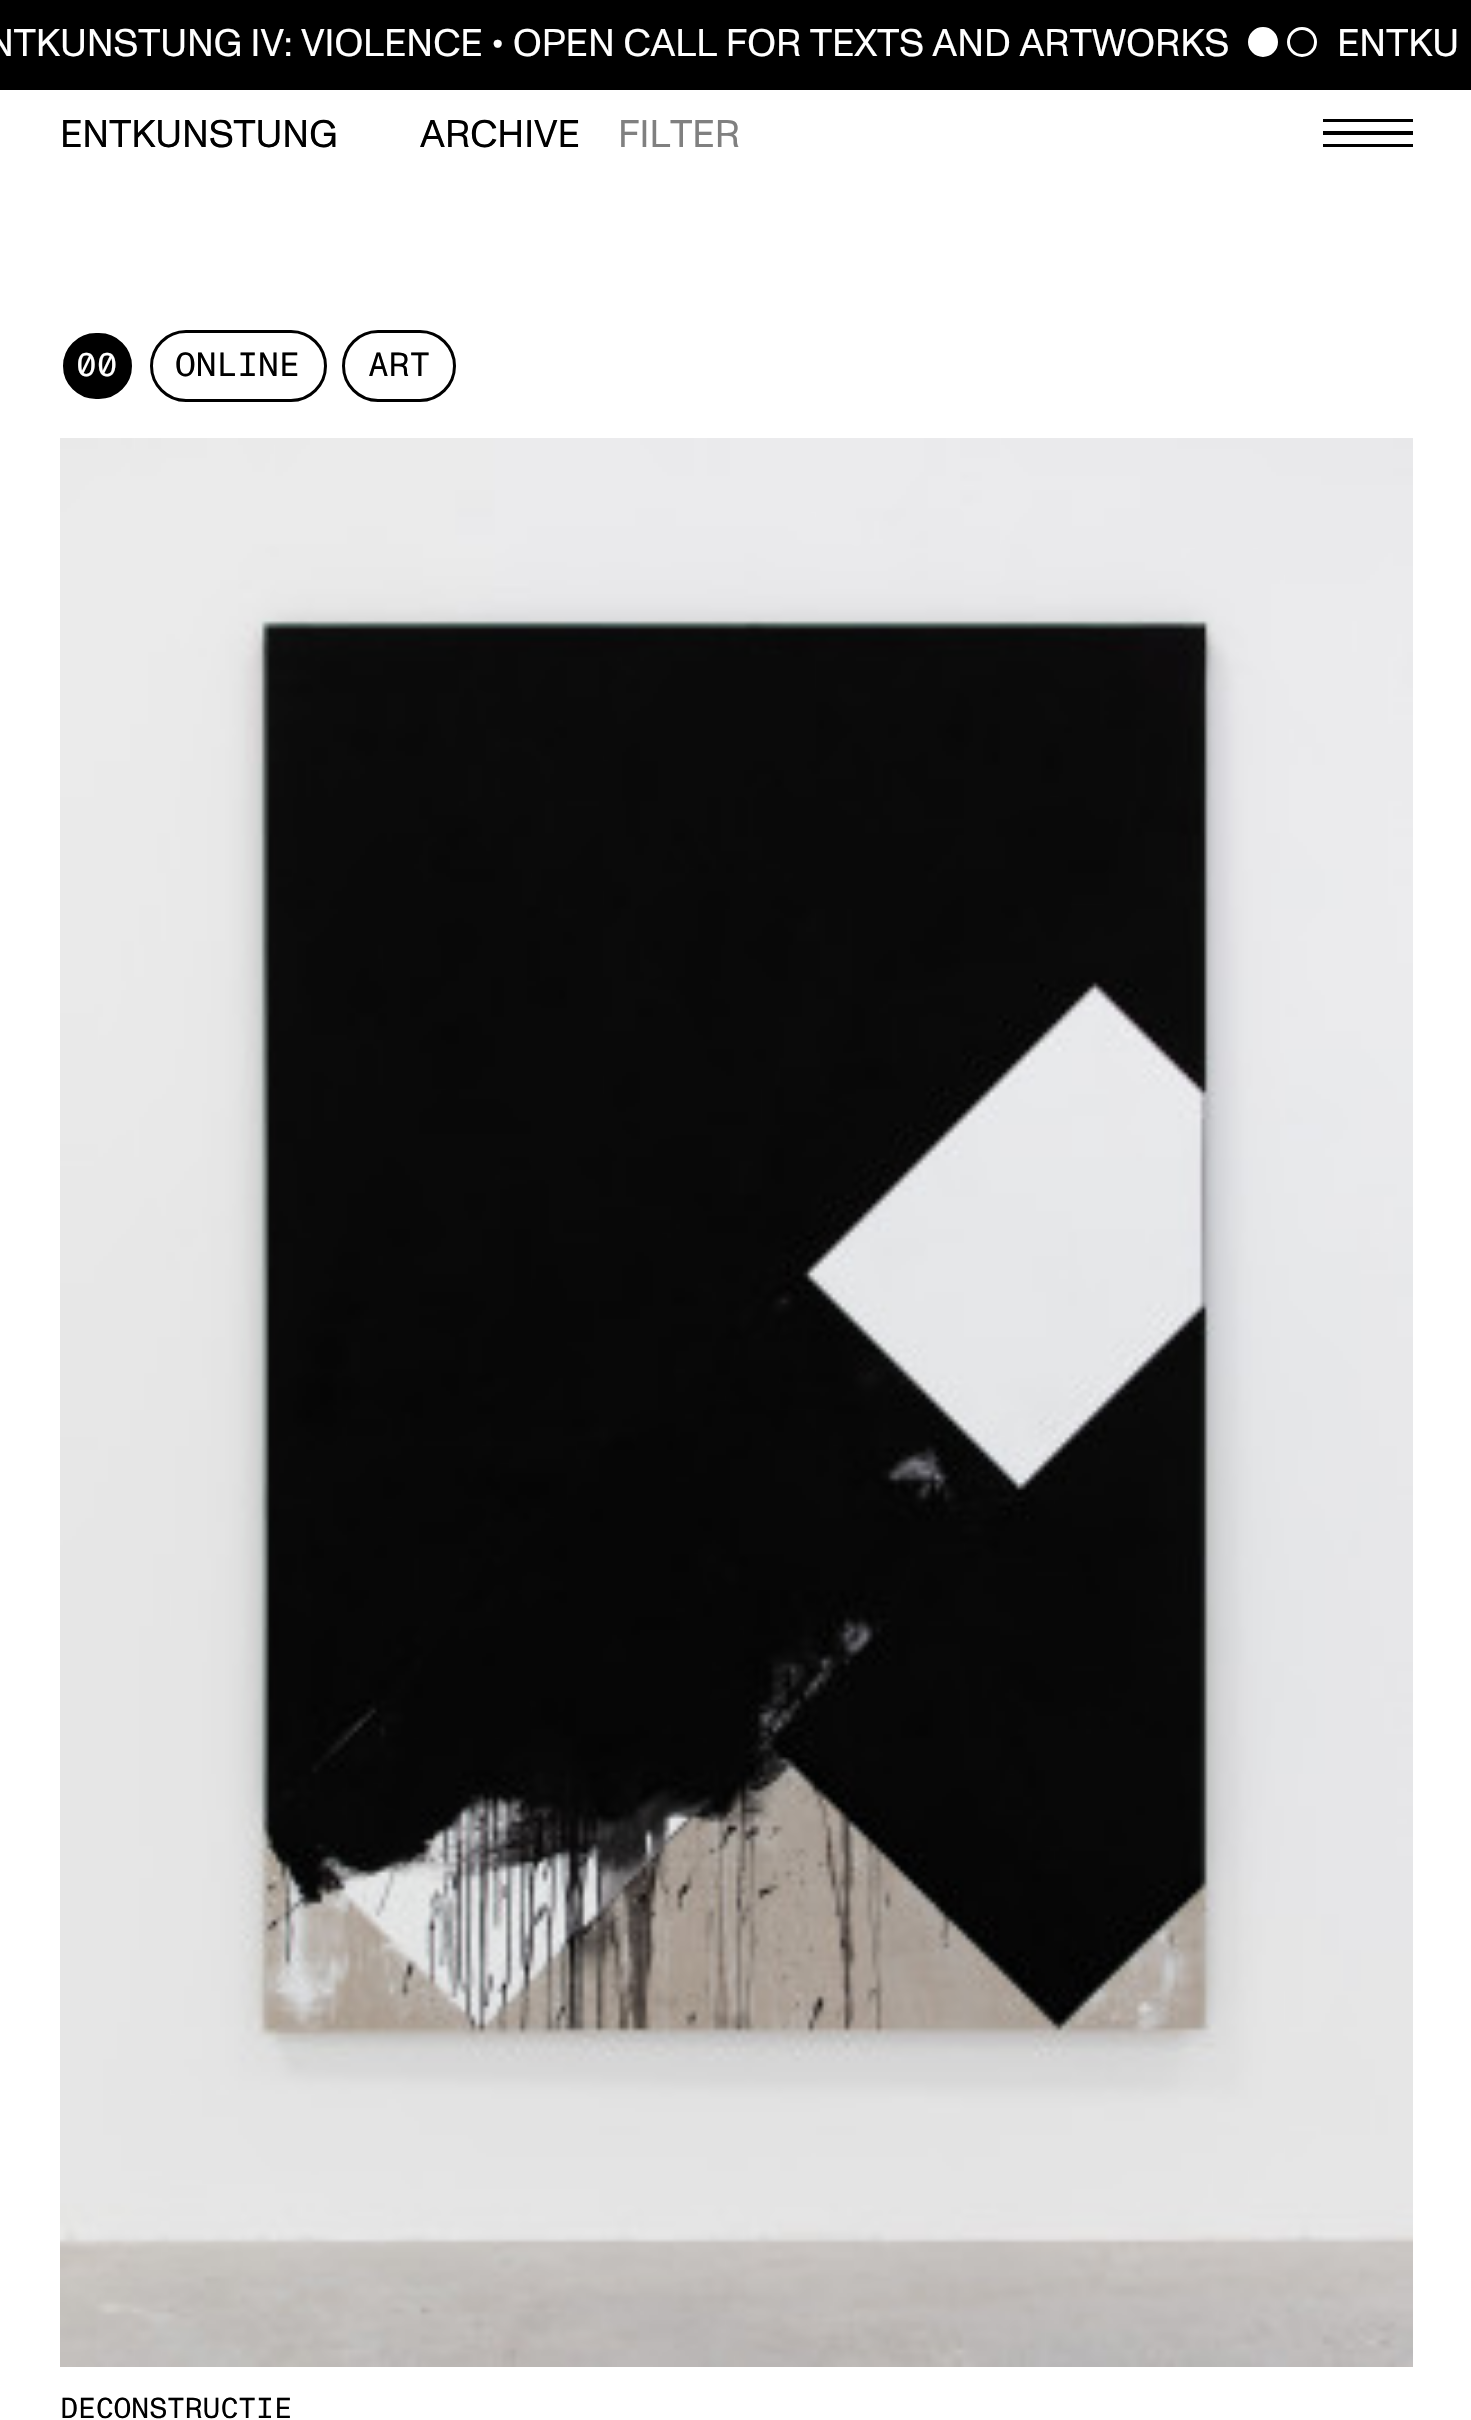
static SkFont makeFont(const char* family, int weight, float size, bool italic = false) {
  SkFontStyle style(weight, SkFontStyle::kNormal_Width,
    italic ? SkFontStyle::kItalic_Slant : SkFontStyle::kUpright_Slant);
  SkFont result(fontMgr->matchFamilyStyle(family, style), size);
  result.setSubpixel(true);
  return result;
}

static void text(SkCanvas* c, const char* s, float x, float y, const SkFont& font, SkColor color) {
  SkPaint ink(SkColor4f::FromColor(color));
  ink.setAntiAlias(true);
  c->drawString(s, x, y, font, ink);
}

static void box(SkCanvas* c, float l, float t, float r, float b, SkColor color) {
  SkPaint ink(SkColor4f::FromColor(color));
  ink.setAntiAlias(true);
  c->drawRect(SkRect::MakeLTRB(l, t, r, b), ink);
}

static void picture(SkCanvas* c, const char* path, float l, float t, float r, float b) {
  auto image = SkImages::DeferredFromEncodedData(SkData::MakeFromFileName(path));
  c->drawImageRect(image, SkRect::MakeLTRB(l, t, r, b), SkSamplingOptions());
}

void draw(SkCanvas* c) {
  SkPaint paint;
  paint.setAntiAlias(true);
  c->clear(0xffffffff);
  box(c, 0, 0, 1471, 90, 0xff000000);
  SkFont face1 = makeFont("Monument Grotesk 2", 400, 38.4f);
  text(c, "NTKUNSTUNG IV: VIOLENCE • OPEN CALL FOR TEXTS AND ARTWORKS", -13, 56, face1, 0xffffffff);
  paint.setColor(0xffffffff);
  c->drawCircle(1263, 42, 13.5f, paint);
  paint.setStyle(SkPaint::kStroke_Style);
  paint.setStrokeWidth(3);
  c->drawCircle(1263, 42, 13.5f, paint);
  c->drawCircle(1302, 42, 13.5f, paint);
  text(c, "ENTKU", 1337, 56, face1, 0xffffffff);
  text(c, "ENTKUNSTUNG", 60, 147, face1, 0xff000000);
  text(c, "ARCHIVE", 420, 147, face1, 0xff000000);
  text(c, "FILTER", 618, 147, face1, 0xff808080);
  box(c, 1323, 119, 1413, 122, 0xff000000);
  box(c, 1323, 131, 1413, 135, 0xff000000);
  box(c, 1323, 144, 1413, 147, 0xff000000);
  paint.setStyle(SkPaint::kFill_Style);
  paint.setColor(0xff000000);
  c->drawRoundRect(SkRect::MakeLTRB(61.5f, 331.5f, 133.5f, 400.5f), 34.5f, 34.5f, paint);
  paint.setStyle(SkPaint::kStroke_Style);
  paint.setColor(0xffffffff);
  c->drawRoundRect(SkRect::MakeLTRB(61.5f, 331.5f, 133.5f, 400.5f), 34.5f, 34.5f, paint);
  SkFont face2 = makeFont("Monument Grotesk", 400, 33.5f);
  text(c, "00", 76, 376, face2, 0xffffffff);
  paint.setColor(0xff000000);
  c->drawRoundRect(SkRect::MakeLTRB(151.5f, 331.5f, 325.5f, 400.5f), 34.5f, 34.5f, paint);
  text(c, "ONLINE", 175, 376, face2, 0xff000000);
  c->drawRoundRect(SkRect::MakeLTRB(343.5f, 331.5f, 454.5f, 400.5f), 34.5f, 34.5f, paint);
  text(c, "ART", 368, 376, face2, 0xff000000);
  picture(c, "img_01.png", 60, 438, 1413, 2367);
  SkFont face3 = makeFont("Monument Grotesk", 400, 28.75f);
  text(c, "DECONSTRUCTIE", 60, 2418, face3, 0xff000000);
}
